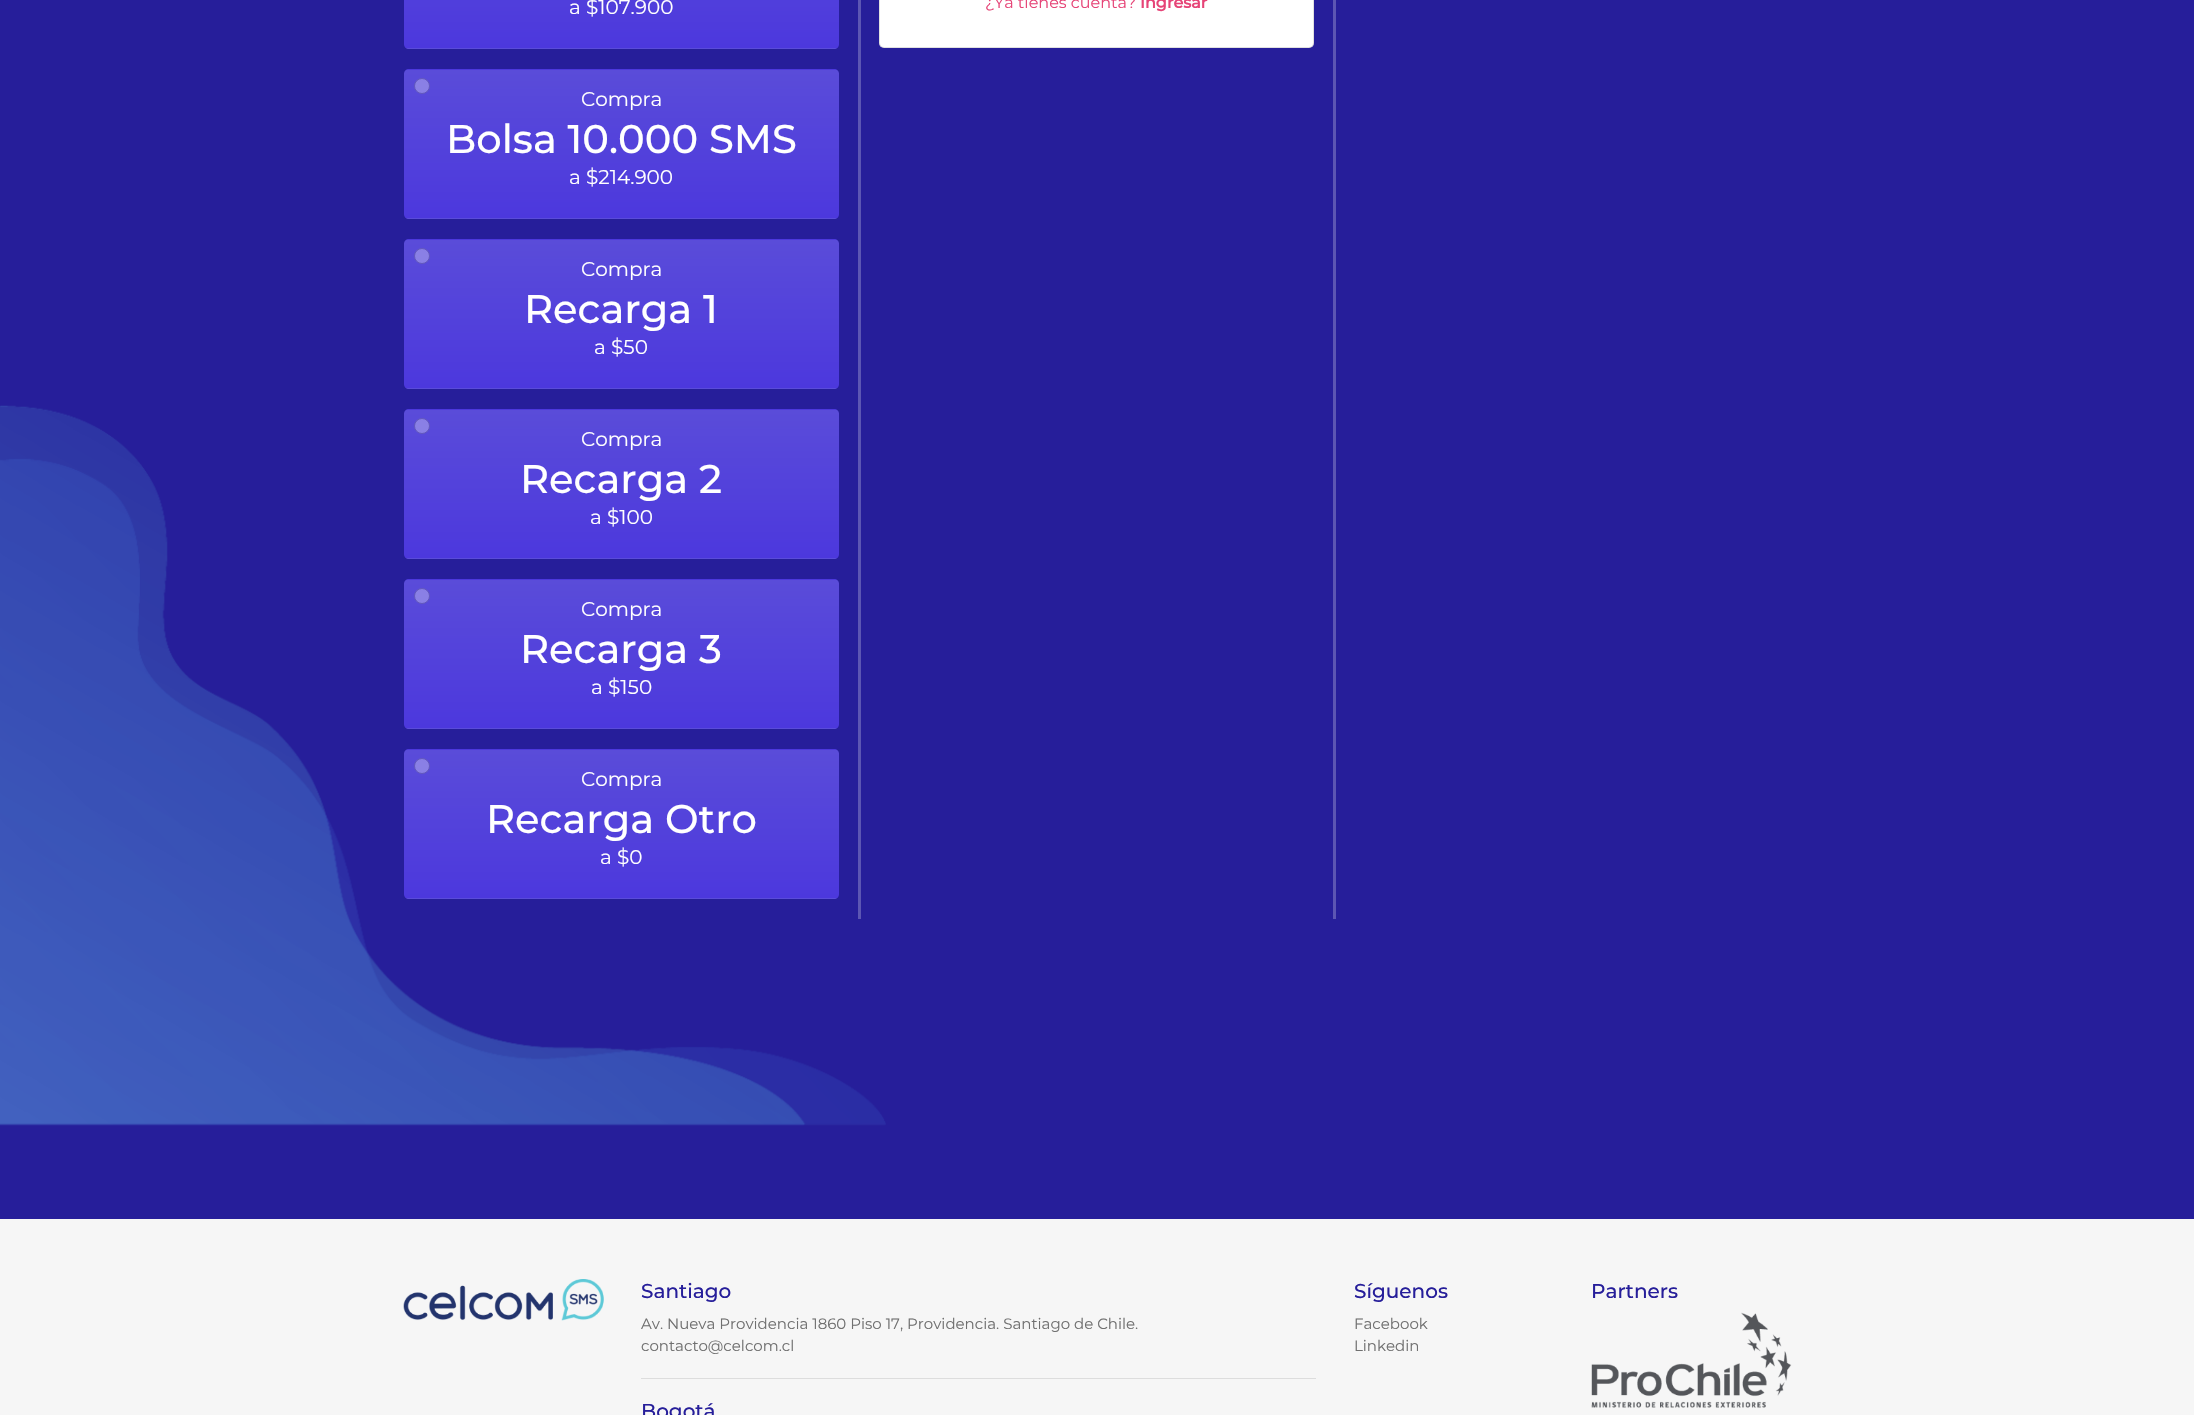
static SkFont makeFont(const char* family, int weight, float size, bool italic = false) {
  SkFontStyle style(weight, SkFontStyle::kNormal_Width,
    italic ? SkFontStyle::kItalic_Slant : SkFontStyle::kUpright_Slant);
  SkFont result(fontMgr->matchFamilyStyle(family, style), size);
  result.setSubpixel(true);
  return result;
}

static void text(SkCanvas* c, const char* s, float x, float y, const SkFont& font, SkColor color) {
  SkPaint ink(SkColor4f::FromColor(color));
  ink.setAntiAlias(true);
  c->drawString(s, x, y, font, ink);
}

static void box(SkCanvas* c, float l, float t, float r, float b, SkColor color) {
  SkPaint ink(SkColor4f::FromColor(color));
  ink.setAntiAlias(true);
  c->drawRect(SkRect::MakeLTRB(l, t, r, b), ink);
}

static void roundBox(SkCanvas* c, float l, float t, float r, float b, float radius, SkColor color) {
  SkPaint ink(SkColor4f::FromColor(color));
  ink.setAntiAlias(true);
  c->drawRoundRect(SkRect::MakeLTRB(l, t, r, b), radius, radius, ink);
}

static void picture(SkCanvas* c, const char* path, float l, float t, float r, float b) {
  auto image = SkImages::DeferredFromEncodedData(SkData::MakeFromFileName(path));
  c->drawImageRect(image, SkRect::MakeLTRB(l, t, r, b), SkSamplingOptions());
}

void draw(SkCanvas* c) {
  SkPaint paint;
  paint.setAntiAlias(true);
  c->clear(0xff261e9a);
  picture(c, "img_01.png", 0, 405, 886, 1126);
  box(c, 858, 0, 861, 919, 0xff5c56b3);
  c->save();
  c->clipPath(SkPathBuilder().moveTo(409, -101).lineTo(834, -101).cubicTo(837, -101, 839, -99, 839, -96).lineTo(839, 44).cubicTo(839, 47, 837, 49, 834, 49).lineTo(409, 49).cubicTo(406, 49, 404, 47, 404, 44).lineTo(404, -96).cubicTo(404, -99, 406, -101, 409, -101).close().detach(), true);
  {
    const SkColor colors[] = {0xff5a4cd9, 0xff4c38dd};
    const float stops[] = {0, 1};
    const SkPoint ends[] = {{621, -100}, {621, 48}};
    paint.setShader(SkGradientShader::MakeLinear(ends, colors, stops, 2, SkTileMode::kClamp));
    paint.setAlpha(255);
  }
  c->drawRect(SkRect::MakeLTRB(404, 0, 839, 48), paint);
  {
    const SkColor colors[] = {0xff5a4cd9, 0xff4c38dd};
    const float stops[] = {0, 1};
    const SkPoint ends[] = {{621, 47}, {621, 195}};
    paint.setShader(SkGradientShader::MakeLinear(ends, colors, stops, 2, SkTileMode::kClamp));
    paint.setAlpha(255);
  }
  c->drawRect(SkRect::MakeLTRB(404, 48, 839, 49), paint);
  c->restore();
  SkFont face1 = makeFont("Montserrat", 400, 20);
  text(c, "a $107.900", 569, 14, face1, 0xffffffff);
  c->save();
  c->clipPath(SkPathBuilder().moveTo(409, 69).lineTo(834, 69).cubicTo(837, 69, 839, 71, 839, 74).lineTo(839, 214).cubicTo(839, 217, 837, 219, 834, 219).lineTo(409, 219).cubicTo(406, 219, 404, 217, 404, 214).lineTo(404, 74).cubicTo(404, 71, 406, 69, 409, 69).close().detach(), true);
  {
    const SkColor colors[] = {0xff5a4cd9, 0xff4c38dd};
    const float stops[] = {0, 1};
    const SkPoint ends[] = {{621, -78}, {621, 70}};
    paint.setShader(SkGradientShader::MakeLinear(ends, colors, stops, 2, SkTileMode::kClamp));
    paint.setAlpha(255);
  }
  c->drawRect(SkRect::MakeLTRB(404, 69, 839, 70), paint);
  {
    const SkColor colors[] = {0xff5a4cd9, 0xff4c38dd};
    const float stops[] = {0, 1};
    const SkPoint ends[] = {{621, 70}, {621, 218}};
    paint.setShader(SkGradientShader::MakeLinear(ends, colors, stops, 2, SkTileMode::kClamp));
    paint.setAlpha(255);
  }
  c->drawRect(SkRect::MakeLTRB(404, 70, 839, 218), paint);
  {
    const SkColor colors[] = {0xff5a4cd9, 0xff4c38dd};
    const float stops[] = {0, 1};
    const SkPoint ends[] = {{621, 217}, {621, 365}};
    paint.setShader(SkGradientShader::MakeLinear(ends, colors, stops, 2, SkTileMode::kClamp));
    paint.setAlpha(255);
  }
  c->drawRect(SkRect::MakeLTRB(404, 218, 839, 219), paint);
  c->restore();
  paint.setShader(nullptr);
  paint.setColor(0xff8a80e5);
  c->drawCircle(422, 86, 7.5f, paint);
  paint.setStyle(SkPaint::kStroke_Style);
  paint.setStrokeWidth(1);
  paint.setColor(0xff6157bc);
  c->drawCircle(422, 86, 7.5f, paint);
  text(c, "Compra", 581, 106, face1, 0xffffffff);
  SkFont face2 = makeFont("Montserrat", 500, 40);
  text(c, "Bolsa 10.000 SMS", 446, 153, face2, 0xffffffff);
  text(c, "a $214.900", 569, 184, face1, 0xffffffff);
  c->save();
  c->clipPath(SkPathBuilder().moveTo(409, 239).lineTo(834, 239).cubicTo(837, 239, 839, 241, 839, 244).lineTo(839, 384).cubicTo(839, 387, 837, 389, 834, 389).lineTo(409, 389).cubicTo(406, 389, 404, 387, 404, 384).lineTo(404, 244).cubicTo(404, 241, 406, 239, 409, 239).close().detach(), true);
  paint.setStyle(SkPaint::kFill_Style);
  {
    const SkColor colors[] = {0xff5a4cd9, 0xff4c38dd};
    const float stops[] = {0, 1};
    const SkPoint ends[] = {{621, 92}, {621, 240}};
    paint.setShader(SkGradientShader::MakeLinear(ends, colors, stops, 2, SkTileMode::kClamp));
    paint.setAlpha(255);
  }
  c->drawRect(SkRect::MakeLTRB(404, 239, 839, 240), paint);
  {
    const SkColor colors[] = {0xff5a4cd9, 0xff4c38dd};
    const float stops[] = {0, 1};
    const SkPoint ends[] = {{621, 240}, {621, 388}};
    paint.setShader(SkGradientShader::MakeLinear(ends, colors, stops, 2, SkTileMode::kClamp));
    paint.setAlpha(255);
  }
  c->drawRect(SkRect::MakeLTRB(404, 240, 839, 388), paint);
  {
    const SkColor colors[] = {0xff5a4cd9, 0xff4c38dd};
    const float stops[] = {0, 1};
    const SkPoint ends[] = {{621, 388}, {621, 535}};
    paint.setShader(SkGradientShader::MakeLinear(ends, colors, stops, 2, SkTileMode::kClamp));
    paint.setAlpha(255);
  }
  c->drawRect(SkRect::MakeLTRB(404, 388, 839, 389), paint);
  c->restore();
  paint.setShader(nullptr);
  paint.setColor(0xff8a80e5);
  c->drawCircle(422, 256, 7.5f, paint);
  paint.setStyle(SkPaint::kStroke_Style);
  paint.setColor(0xff6157bc);
  c->drawCircle(422, 256, 7.5f, paint);
  text(c, "Compra", 581, 276, face1, 0xffffffff);
  text(c, "Recarga 1", 524, 323, face2, 0xffffffff);
  text(c, "a $50", 594, 354, face1, 0xffffffff);
  c->save();
  c->clipPath(SkPathBuilder().moveTo(409, 409).lineTo(834, 409).cubicTo(837, 409, 839, 411, 839, 414).lineTo(839, 554).cubicTo(839, 557, 837, 559, 834, 559).lineTo(409, 559).cubicTo(406, 559, 404, 557, 404, 554).lineTo(404, 414).cubicTo(404, 411, 406, 409, 409, 409).close().detach(), true);
  paint.setStyle(SkPaint::kFill_Style);
  {
    const SkColor colors[] = {0xff5a4cd9, 0xff4c38dd};
    const float stops[] = {0, 1};
    const SkPoint ends[] = {{621, 262}, {621, 410}};
    paint.setShader(SkGradientShader::MakeLinear(ends, colors, stops, 2, SkTileMode::kClamp));
    paint.setAlpha(255);
  }
  c->drawRect(SkRect::MakeLTRB(404, 409, 839, 410), paint);
  {
    const SkColor colors[] = {0xff5a4cd9, 0xff4c38dd};
    const float stops[] = {0, 1};
    const SkPoint ends[] = {{621, 410}, {621, 558}};
    paint.setShader(SkGradientShader::MakeLinear(ends, colors, stops, 2, SkTileMode::kClamp));
    paint.setAlpha(255);
  }
  c->drawRect(SkRect::MakeLTRB(404, 410, 839, 558), paint);
  {
    const SkColor colors[] = {0xff5a4cd9, 0xff4c38dd};
    const float stops[] = {0, 1};
    const SkPoint ends[] = {{621, 558}, {621, 705}};
    paint.setShader(SkGradientShader::MakeLinear(ends, colors, stops, 2, SkTileMode::kClamp));
    paint.setAlpha(255);
  }
  c->drawRect(SkRect::MakeLTRB(404, 558, 839, 559), paint);
  c->restore();
  paint.setShader(nullptr);
  paint.setColor(0xff8a80e5);
  c->drawCircle(422, 426, 7.5f, paint);
  paint.setStyle(SkPaint::kStroke_Style);
  paint.setColor(0xff6157bc);
  c->drawCircle(422, 426, 7.5f, paint);
  text(c, "Compra", 581, 446, face1, 0xffffffff);
  text(c, "Recarga 2", 520, 493, face2, 0xffffffff);
  text(c, "a $100", 590, 524, face1, 0xffffffff);
  c->save();
  c->clipPath(SkPathBuilder().moveTo(409, 579).lineTo(834, 579).cubicTo(837, 579, 839, 581, 839, 584).lineTo(839, 724).cubicTo(839, 727, 837, 729, 834, 729).lineTo(409, 729).cubicTo(406, 729, 404, 727, 404, 724).lineTo(404, 584).cubicTo(404, 581, 406, 579, 409, 579).close().detach(), true);
  paint.setStyle(SkPaint::kFill_Style);
  {
    const SkColor colors[] = {0xff5a4cd9, 0xff4c38dd};
    const float stops[] = {0, 1};
    const SkPoint ends[] = {{621, 433}, {621, 580}};
    paint.setShader(SkGradientShader::MakeLinear(ends, colors, stops, 2, SkTileMode::kClamp));
    paint.setAlpha(255);
  }
  c->drawRect(SkRect::MakeLTRB(404, 579, 839, 580), paint);
  {
    const SkColor colors[] = {0xff5a4cd9, 0xff4c38dd};
    const float stops[] = {0, 1};
    const SkPoint ends[] = {{621, 580}, {621, 728}};
    paint.setShader(SkGradientShader::MakeLinear(ends, colors, stops, 2, SkTileMode::kClamp));
    paint.setAlpha(255);
  }
  c->drawRect(SkRect::MakeLTRB(404, 580, 839, 728), paint);
  {
    const SkColor colors[] = {0xff5a4cd9, 0xff4c38dd};
    const float stops[] = {0, 1};
    const SkPoint ends[] = {{621, 728}, {621, 875}};
    paint.setShader(SkGradientShader::MakeLinear(ends, colors, stops, 2, SkTileMode::kClamp));
    paint.setAlpha(255);
  }
  c->drawRect(SkRect::MakeLTRB(404, 728, 839, 729), paint);
  c->restore();
  paint.setShader(nullptr);
  paint.setColor(0xff8a80e5);
  c->drawCircle(422, 596, 7.5f, paint);
  paint.setStyle(SkPaint::kStroke_Style);
  paint.setColor(0xff6157bc);
  c->drawCircle(422, 596, 7.5f, paint);
  text(c, "Compra", 581, 616, face1, 0xffffffff);
  text(c, "Recarga 3", 520, 663, face2, 0xffffffff);
  text(c, "a $150", 591, 694, face1, 0xffffffff);
  c->save();
  c->clipPath(SkPathBuilder().moveTo(409, 749).lineTo(834, 749).cubicTo(837, 749, 839, 751, 839, 754).lineTo(839, 894).cubicTo(839, 897, 837, 899, 834, 899).lineTo(409, 899).cubicTo(406, 899, 404, 897, 404, 894).lineTo(404, 754).cubicTo(404, 751, 406, 749, 409, 749).close().detach(), true);
  paint.setStyle(SkPaint::kFill_Style);
  {
    const SkColor colors[] = {0xff5a4cd9, 0xff4c38dd};
    const float stops[] = {0, 1};
    const SkPoint ends[] = {{621, 603}, {621, 750}};
    paint.setShader(SkGradientShader::MakeLinear(ends, colors, stops, 2, SkTileMode::kClamp));
    paint.setAlpha(255);
  }
  c->drawRect(SkRect::MakeLTRB(404, 749, 839, 750), paint);
  {
    const SkColor colors[] = {0xff5a4cd9, 0xff4c38dd};
    const float stops[] = {0, 1};
    const SkPoint ends[] = {{621, 750}, {621, 898}};
    paint.setShader(SkGradientShader::MakeLinear(ends, colors, stops, 2, SkTileMode::kClamp));
    paint.setAlpha(255);
  }
  c->drawRect(SkRect::MakeLTRB(404, 750, 839, 898), paint);
  {
    const SkColor colors[] = {0xff5a4cd9, 0xff4c38dd};
    const float stops[] = {0, 1};
    const SkPoint ends[] = {{621, 898}, {621, 1045}};
    paint.setShader(SkGradientShader::MakeLinear(ends, colors, stops, 2, SkTileMode::kClamp));
    paint.setAlpha(255);
  }
  c->drawRect(SkRect::MakeLTRB(404, 898, 839, 899), paint);
  c->restore();
  paint.setShader(nullptr);
  paint.setColor(0xff8a80e5);
  c->drawCircle(422, 766, 7.5f, paint);
  paint.setStyle(SkPaint::kStroke_Style);
  paint.setColor(0xff6157bc);
  c->drawCircle(422, 766, 7.5f, paint);
  text(c, "Compra", 581, 786, face1, 0xffffffff);
  text(c, "Recarga Otro", 486, 833, face2, 0xffffffff);
  text(c, "a $0", 600, 864, face1, 0xffffffff);
  box(c, 1333, 0, 1336, 919, 0xff5c56b3);
  roundBox(c, 879, -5, 1314, 48, 5, 0xffffffff);
  paint.setColor(0x1f000000);
  c->drawRoundRect(SkRect::MakeLTRB(879.5f, -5.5f, 1313.5f, 47.5f), 4.5f, 4.5f, paint);
  SkFont face3 = makeFont("Montserrat", 400, 16);
  text(c, "¿Ya tienes cuenta?", 985, 8, face3, 0xffe64477);
  SkFont face4 = makeFont("Montserrat", 700, 16);
  text(c, "Ingresar", 1140, 8, face4, 0xffe64477);
  box(c, 0, 1219, 2194, 1415, 0xfff6f6f6);
  picture(c, "img_02.png", 403, 1279, 604, 1321);
  SkFont face5 = makeFont("Montserrat", 500, 20);
  text(c, "Santiago", 641, 1298, face5, 0xff261e9a);
  SkFont face6 = makeFont("Montserrat", 400, 15);
  text(c, "Av. Nueva Providencia 1860 Piso 17, Providencia. Santiago de Chile.", 641, 1329, face6, 0xff707070);
  text(c, "contacto@celcom.cl", 641, 1351, face6, 0xff707070);
  box(c, 641, 1378, 1316, 1379, 0xffdddddd);
  text(c, "Bogotá", 641, 1418, face5, 0xff261e9a);
  text(c, "Síguenos", 1354, 1298, face5, 0xff261e9a);
  text(c, "Facebook", 1354, 1329, face6, 0xff707070);
  text(c, "Linkedin", 1354, 1351, face6, 0xff707070);
  text(c, "Partners", 1591, 1298, face5, 0xff261e9a);
  picture(c, "img_03.png", 1591, 1312, 1792, 1408);
}
